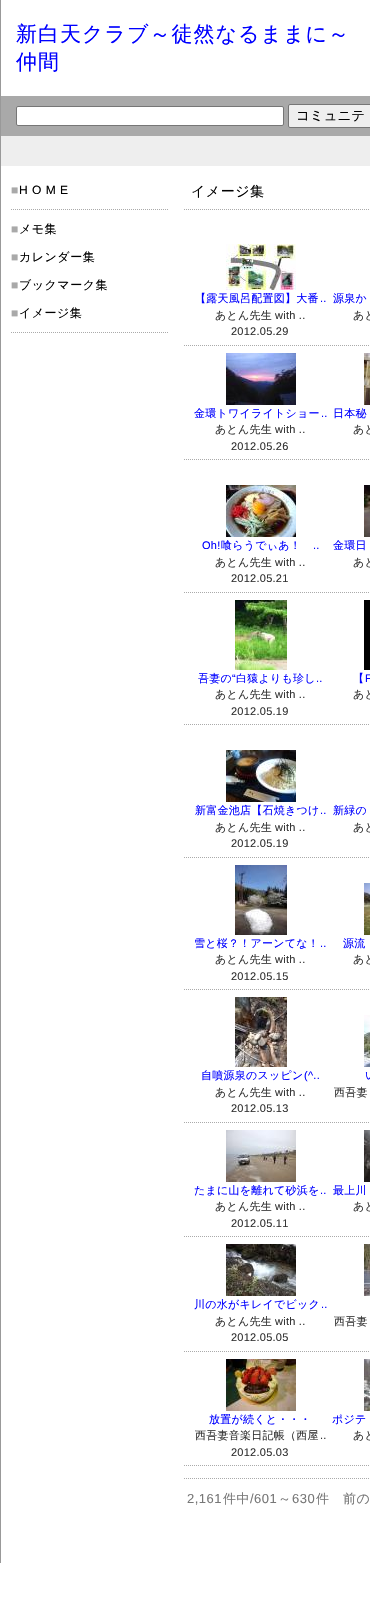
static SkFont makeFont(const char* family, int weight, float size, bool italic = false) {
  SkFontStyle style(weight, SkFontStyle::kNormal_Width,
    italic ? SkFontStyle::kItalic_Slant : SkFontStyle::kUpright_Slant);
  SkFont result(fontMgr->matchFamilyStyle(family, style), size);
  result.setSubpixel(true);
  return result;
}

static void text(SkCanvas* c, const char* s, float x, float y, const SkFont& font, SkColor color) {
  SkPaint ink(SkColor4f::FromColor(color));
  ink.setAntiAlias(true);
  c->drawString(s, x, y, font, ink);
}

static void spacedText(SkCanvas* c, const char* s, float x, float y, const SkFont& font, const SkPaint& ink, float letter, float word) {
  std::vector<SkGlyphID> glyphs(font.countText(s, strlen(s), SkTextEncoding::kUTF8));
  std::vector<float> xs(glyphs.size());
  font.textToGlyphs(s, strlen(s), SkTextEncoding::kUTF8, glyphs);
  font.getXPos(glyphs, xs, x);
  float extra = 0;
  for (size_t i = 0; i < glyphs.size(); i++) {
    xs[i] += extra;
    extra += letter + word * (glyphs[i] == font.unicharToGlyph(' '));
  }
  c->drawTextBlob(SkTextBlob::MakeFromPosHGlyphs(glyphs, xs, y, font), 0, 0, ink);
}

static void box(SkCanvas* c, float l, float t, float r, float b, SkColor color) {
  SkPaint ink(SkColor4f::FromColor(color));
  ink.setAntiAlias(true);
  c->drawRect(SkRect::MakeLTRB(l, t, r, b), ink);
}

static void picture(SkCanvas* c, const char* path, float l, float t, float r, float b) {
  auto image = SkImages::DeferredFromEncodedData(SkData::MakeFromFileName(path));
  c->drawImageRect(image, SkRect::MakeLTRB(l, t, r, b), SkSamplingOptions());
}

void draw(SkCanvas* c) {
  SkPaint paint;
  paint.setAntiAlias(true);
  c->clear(0xffffffff);
  box(c, 0, 0, 1, 1563, 0xff999999);
  SkFont face1 = makeFont("WenQuanYi Zen Hei", 500, 21);
  paint.setColor(0xff0000ff);
  spacedText(c, "新白天クラブ～徒然なるままに～", 16, 41, face1, paint, 1, 0);
  spacedText(c, "仲間", 16, 69, face1, paint, 1, 0);
  box(c, 1, 96, 370, 136, 0xffa9a9a9);
  paint.setColor(0xffffffff);
  c->drawRoundRect(SkRect::MakeLTRB(16.5f, 106.5f, 283.5f, 125.5f), 1.5f, 1.5f, paint);
  paint.setStyle(SkPaint::kStroke_Style);
  paint.setStrokeWidth(1);
  paint.setColor(0xff767676);
  c->drawRoundRect(SkRect::MakeLTRB(16.5f, 106.5f, 283.5f, 125.5f), 1.5f, 1.5f, paint);
  paint.setStyle(SkPaint::kFill_Style);
  paint.setColor(0xffefefef);
  c->drawRoundRect(SkRect::MakeLTRB(288.5f, 104.5f, 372.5f, 127.5f), 1.5f, 1.5f, paint);
  paint.setStyle(SkPaint::kStroke_Style);
  paint.setColor(0xff767676);
  c->drawRoundRect(SkRect::MakeLTRB(288.5f, 104.5f, 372.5f, 127.5f), 1.5f, 1.5f, paint);
  SkFont face2 = makeFont("WenQuanYi Zen Hei", 500, 13.5f);
  text(c, "コミュニテ", 296, 120, face2, 0xff000000);
  box(c, 1, 136, 370, 166, 0xffeeeeee);
  SkFont face3 = makeFont("Liberation Sans", 400, 12);
  paint.setStyle(SkPaint::kFill_Style);
  paint.setColor(0xffa9a9a9);
  spacedText(c, "■", 11, 194, face3, paint, 0.5f, 0);
  paint.setColor(0xff000000);
  spacedText(c, "H O M E", 19, 194, face3, paint, 0.5f, 0);
  paint.setStyle(SkPaint::kStroke_Style);
  paint.setColor(0xffaaaaaa);
  paint.setPathEffect(SkDashPathEffect::Make({{1, 1}}, 0));
  c->drawPath(SkPathBuilder().moveTo(11, 209.5f).lineTo(169, 209.5f).detach(), paint);
  paint.setPathEffect(nullptr);
  paint.setStyle(SkPaint::kFill_Style);
  paint.setColor(0xffa9a9a9);
  spacedText(c, "■", 11, 233, face3, paint, 0.5f, 0);
  SkFont face4 = makeFont("WenQuanYi Zen Hei", 500, 12);
  paint.setColor(0xff000000);
  spacedText(c, "メモ集", 19, 233, face4, paint, 0.5f, 0);
  paint.setColor(0xffa9a9a9);
  spacedText(c, "■", 11, 261, face3, paint, 0.5f, 0);
  paint.setColor(0xff000000);
  spacedText(c, "カレンダー集", 19, 261, face4, paint, 0.5f, 0);
  paint.setColor(0xffa9a9a9);
  spacedText(c, "■", 11, 289, face3, paint, 0.5f, 0);
  paint.setColor(0xff000000);
  spacedText(c, "ブックマーク集", 19, 289, face4, paint, 0.5f, 0);
  paint.setColor(0xffa9a9a9);
  spacedText(c, "■", 11, 317, face3, paint, 0.5f, 0);
  paint.setColor(0xff000000);
  spacedText(c, "イメージ集", 19, 317, face4, paint, 0.5f, 0);
  paint.setStyle(SkPaint::kStroke_Style);
  paint.setColor(0xffaaaaaa);
  paint.setPathEffect(SkDashPathEffect::Make({{1, 1}}, 0));
  c->drawPath(SkPathBuilder().moveTo(11, 332.5f).lineTo(169, 332.5f).detach(), paint);
  paint.setPathEffect(nullptr);
  paint.setPathEffect(SkDashPathEffect::Make({{1, 1}}, 0));
  c->drawPath(SkPathBuilder().moveTo(184, 209.5f).lineTo(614, 209.5f).detach(), paint);
  paint.setPathEffect(nullptr);
  SkFont face5 = makeFont("WenQuanYi Zen Hei", 500, 14);
  paint.setStyle(SkPaint::kFill_Style);
  paint.setColor(0xff000000);
  spacedText(c, "イメージ集", 191, 196, face5, paint, 0.5f, 0);
  paint.setStyle(SkPaint::kStroke_Style);
  paint.setColor(0xffaaaaaa);
  paint.setPathEffect(SkDashPathEffect::Make({{1, 1}}, 0));
  c->drawPath(SkPathBuilder().moveTo(184, 345.5f).lineTo(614, 345.5f).detach(), paint);
  paint.setPathEffect(nullptr);
  picture(c, "img_01.png", 226, 244, 296, 290);
  SkFont face6 = makeFont("WenQuanYi Zen Hei", 500, 11);
  paint.setStyle(SkPaint::kFill_Style);
  paint.setColor(0xff0000ff);
  spacedText(c, "【露天風呂配置図】大番", 195, 302, face6, paint, 0.25f, 0);
  SkFont face7 = makeFont("Liberation Sans", 400, 11);
  spacedText(c, "..", 320, 302, face7, paint, 0.25f, 0);
  paint.setColor(0xff333333);
  spacedText(c, "あとん先生", 215, 319, face6, paint, 0.25f, 0);
  spacedText(c, "with ..", 275, 319, face7, paint, 0.25f, 0);
  spacedText(c, "2012.05.29", 231, 335, face7, paint, 0.25f, 0);
  paint.setColor(0xff0000ff);
  spacedText(c, "源泉か", 333, 302, face6, paint, 0.25f, 0);
  paint.setColor(0xff333333);
  spacedText(c, "あと", 353, 319, face6, paint, 0.25f, 0);
  paint.setStyle(SkPaint::kStroke_Style);
  paint.setColor(0xffaaaaaa);
  paint.setPathEffect(SkDashPathEffect::Make({{1, 1}}, 0));
  c->drawPath(SkPathBuilder().moveTo(184, 459.5f).lineTo(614, 459.5f).detach(), paint);
  paint.setPathEffect(nullptr);
  picture(c, "img_02.png", 226, 353, 296, 405);
  paint.setStyle(SkPaint::kFill_Style);
  paint.setColor(0xff0000ff);
  spacedText(c, "金環トワイライトショー", 194, 417, face6, paint, 0.25f, 0);
  spacedText(c, "..", 321, 417, face7, paint, 0.25f, 0);
  paint.setColor(0xff333333);
  spacedText(c, "あとん先生", 215, 433, face6, paint, 0.25f, 0);
  spacedText(c, "with ..", 275, 433, face7, paint, 0.25f, 0);
  spacedText(c, "2012.05.26", 231, 450, face7, paint, 0.25f, 0);
  picture(c, "img_03.png", 364, 353, 370, 405);
  paint.setColor(0xff0000ff);
  spacedText(c, "日本秘", 333, 417, face6, paint, 0.25f, 0);
  paint.setColor(0xff333333);
  spacedText(c, "あと", 353, 433, face6, paint, 0.25f, 0);
  paint.setStyle(SkPaint::kStroke_Style);
  paint.setColor(0xffaaaaaa);
  paint.setPathEffect(SkDashPathEffect::Make({{1, 1}}, 0));
  c->drawPath(SkPathBuilder().moveTo(184, 592.5f).lineTo(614, 592.5f).detach(), paint);
  paint.setPathEffect(nullptr);
  picture(c, "img_04.png", 226, 485, 296, 537);
  paint.setStyle(SkPaint::kFill_Style);
  paint.setColor(0xff0000ff);
  spacedText(c, "Oh!", 202, 549, face7, paint, 0.25f, 0);
  spacedText(c, "喰らうでぃあ！", 221, 549, face6, paint, 0.25f, 0);
  spacedText(c, "..", 313, 549, face7, paint, 0.25f, 0);
  paint.setColor(0xff333333);
  spacedText(c, "あとん先生", 215, 566, face6, paint, 0.25f, 0);
  spacedText(c, "with ..", 275, 566, face7, paint, 0.25f, 0);
  spacedText(c, "2012.05.21", 231, 582, face7, paint, 0.25f, 0);
  picture(c, "img_05.png", 364, 485, 370, 537);
  paint.setColor(0xff0000ff);
  spacedText(c, "金環日", 333, 549, face6, paint, 0.25f, 0);
  paint.setColor(0xff333333);
  spacedText(c, "あと", 353, 566, face6, paint, 0.25f, 0);
  paint.setStyle(SkPaint::kStroke_Style);
  paint.setColor(0xffaaaaaa);
  paint.setPathEffect(SkDashPathEffect::Make({{1, 1}}, 0));
  c->drawPath(SkPathBuilder().moveTo(184, 724.5f).lineTo(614, 724.5f).detach(), paint);
  paint.setPathEffect(nullptr);
  picture(c, "img_06.png", 235, 600, 287, 670);
  paint.setStyle(SkPaint::kFill_Style);
  paint.setColor(0xff0000ff);
  spacedText(c, "吾妻の", 198, 682, face6, paint, 0.25f, 0);
  spacedText(c, "“", 232, 682, face7, paint, 0.25f, 0);
  spacedText(c, "白猿よりも珍し", 236, 682, face6, paint, 0.25f, 0);
  spacedText(c, "..", 316, 682, face7, paint, 0.25f, 0);
  paint.setColor(0xff333333);
  spacedText(c, "あとん先生", 215, 698, face6, paint, 0.25f, 0);
  spacedText(c, "with ..", 275, 698, face7, paint, 0.25f, 0);
  spacedText(c, "2012.05.19", 231, 715, face7, paint, 0.25f, 0);
  box(c, 364, 600, 370, 670, 0xff000000);
  paint.setColor(0xff0000ff);
  spacedText(c, "【", 353, 682, face6, paint, 0.25f, 0);
  spacedText(c, "F", 365, 682, face7, paint, 0.25f, 0);
  paint.setColor(0xff333333);
  spacedText(c, "あと", 353, 698, face6, paint, 0.25f, 0);
  paint.setStyle(SkPaint::kStroke_Style);
  paint.setColor(0xffaaaaaa);
  paint.setPathEffect(SkDashPathEffect::Make({{1, 1}}, 0));
  c->drawPath(SkPathBuilder().moveTo(184, 857.5f).lineTo(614, 857.5f).detach(), paint);
  paint.setPathEffect(nullptr);
  picture(c, "img_07.png", 226, 750, 296, 802);
  paint.setStyle(SkPaint::kFill_Style);
  paint.setColor(0xff0000ff);
  spacedText(c, "新富金池店【石焼きつけ", 195, 814, face6, paint, 0.25f, 0);
  spacedText(c, "..", 320, 814, face7, paint, 0.25f, 0);
  paint.setColor(0xff333333);
  spacedText(c, "あとん先生", 215, 831, face6, paint, 0.25f, 0);
  spacedText(c, "with ..", 275, 831, face7, paint, 0.25f, 0);
  spacedText(c, "2012.05.19", 231, 847, face7, paint, 0.25f, 0);
  paint.setColor(0xff0000ff);
  spacedText(c, "新緑の", 333, 814, face6, paint, 0.25f, 0);
  paint.setColor(0xff333333);
  spacedText(c, "あと", 353, 831, face6, paint, 0.25f, 0);
  paint.setStyle(SkPaint::kStroke_Style);
  paint.setColor(0xffaaaaaa);
  paint.setPathEffect(SkDashPathEffect::Make({{1, 1}}, 0));
  c->drawPath(SkPathBuilder().moveTo(184, 989.5f).lineTo(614, 989.5f).detach(), paint);
  paint.setPathEffect(nullptr);
  picture(c, "img_08.png", 235, 865, 287, 935);
  paint.setStyle(SkPaint::kFill_Style);
  paint.setColor(0xff0000ff);
  spacedText(c, "雪と桜？！アーンてな！", 194, 947, face6, paint, 0.25f, 0);
  spacedText(c, "..", 320, 947, face7, paint, 0.25f, 0);
  paint.setColor(0xff333333);
  spacedText(c, "あとん先生", 215, 963, face6, paint, 0.25f, 0);
  spacedText(c, "with ..", 275, 963, face7, paint, 0.25f, 0);
  spacedText(c, "2012.05.15", 231, 980, face7, paint, 0.25f, 0);
  picture(c, "img_09.png", 364, 883, 370, 935);
  paint.setColor(0xff0000ff);
  spacedText(c, "源流", 343, 947, face6, paint, 0.25f, 0);
  paint.setColor(0xff333333);
  spacedText(c, "あと", 353, 963, face6, paint, 0.25f, 0);
  paint.setStyle(SkPaint::kStroke_Style);
  paint.setColor(0xffaaaaaa);
  paint.setPathEffect(SkDashPathEffect::Make({{1, 1}}, 0));
  c->drawPath(SkPathBuilder().moveTo(184, 1122.5f).lineTo(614, 1122.5f).detach(), paint);
  paint.setPathEffect(nullptr);
  picture(c, "img_10.png", 235, 997, 287, 1067);
  paint.setStyle(SkPaint::kFill_Style);
  paint.setColor(0xff0000ff);
  spacedText(c, "自噴源泉のスッピン", 201, 1079, face6, paint, 0.25f, 0);
  spacedText(c, "(^..", 304, 1079, face7, paint, 0.25f, 0);
  paint.setColor(0xff333333);
  spacedText(c, "あとん先生", 215, 1096, face6, paint, 0.25f, 0);
  spacedText(c, "with ..", 275, 1096, face7, paint, 0.25f, 0);
  spacedText(c, "2012.05.13", 231, 1112, face7, paint, 0.25f, 0);
  picture(c, "img_11.png", 364, 1015, 370, 1067);
  paint.setColor(0xff0000ff);
  spacedText(c, "い", 365, 1079, face6, paint, 0.25f, 0);
  paint.setColor(0xff333333);
  spacedText(c, "西吾妻", 334, 1096, face6, paint, 0.25f, 0);
  paint.setStyle(SkPaint::kStroke_Style);
  paint.setColor(0xffaaaaaa);
  paint.setPathEffect(SkDashPathEffect::Make({{1, 1}}, 0));
  c->drawPath(SkPathBuilder().moveTo(184, 1236.5f).lineTo(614, 1236.5f).detach(), paint);
  paint.setPathEffect(nullptr);
  picture(c, "img_12.png", 226, 1130, 296, 1182);
  paint.setStyle(SkPaint::kFill_Style);
  paint.setColor(0xff0000ff);
  spacedText(c, "たまに山を離れて砂浜を", 194, 1194, face6, paint, 0.25f, 0);
  spacedText(c, "..", 320, 1194, face7, paint, 0.25f, 0);
  paint.setColor(0xff333333);
  spacedText(c, "あとん先生", 215, 1210, face6, paint, 0.25f, 0);
  spacedText(c, "with ..", 275, 1210, face7, paint, 0.25f, 0);
  spacedText(c, "2012.05.11", 231, 1227, face7, paint, 0.25f, 0);
  picture(c, "img_13.png", 364, 1130, 370, 1182);
  paint.setColor(0xff0000ff);
  spacedText(c, "最上川", 333, 1194, face6, paint, 0.25f, 0);
  paint.setColor(0xff333333);
  spacedText(c, "あと", 353, 1210, face6, paint, 0.25f, 0);
  paint.setStyle(SkPaint::kStroke_Style);
  paint.setColor(0xffaaaaaa);
  paint.setPathEffect(SkDashPathEffect::Make({{1, 1}}, 0));
  c->drawPath(SkPathBuilder().moveTo(184, 1351.5f).lineTo(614, 1351.5f).detach(), paint);
  paint.setPathEffect(nullptr);
  picture(c, "img_14.png", 226, 1244, 296, 1296);
  paint.setStyle(SkPaint::kFill_Style);
  paint.setColor(0xff0000ff);
  spacedText(c, "川の水がキレイでビック", 194, 1308, face6, paint, 0.25f, 0);
  spacedText(c, "..", 321, 1308, face7, paint, 0.25f, 0);
  paint.setColor(0xff333333);
  spacedText(c, "あとん先生", 215, 1325, face6, paint, 0.25f, 0);
  spacedText(c, "with ..", 275, 1325, face7, paint, 0.25f, 0);
  spacedText(c, "2012.05.05", 231, 1341, face7, paint, 0.25f, 0);
  picture(c, "img_15.png", 364, 1244, 370, 1296);
  spacedText(c, "西吾妻", 334, 1325, face6, paint, 0.25f, 0);
  paint.setStyle(SkPaint::kStroke_Style);
  paint.setColor(0xffaaaaaa);
  paint.setPathEffect(SkDashPathEffect::Make({{1, 1}}, 0));
  c->drawPath(SkPathBuilder().moveTo(184, 1465.5f).lineTo(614, 1465.5f).detach(), paint);
  paint.setPathEffect(nullptr);
  picture(c, "img_16.png", 226, 1359, 296, 1411);
  paint.setStyle(SkPaint::kFill_Style);
  paint.setColor(0xff0000ff);
  spacedText(c, "放置が続くと・・・", 209, 1423, face6, paint, 0.25f, 0);
  paint.setColor(0xff333333);
  spacedText(c, "西吾妻音楽日記帳（西屋", 195, 1439, face6, paint, 0.25f, 0);
  spacedText(c, "..", 320, 1439, face7, paint, 0.25f, 0);
  spacedText(c, "2012.05.03", 231, 1456, face7, paint, 0.25f, 0);
  picture(c, "img_17.png", 364, 1359, 370, 1411);
  paint.setColor(0xff0000ff);
  spacedText(c, "ポジテ", 332, 1423, face6, paint, 0.25f, 0);
  paint.setColor(0xff333333);
  spacedText(c, "あと", 353, 1439, face6, paint, 0.25f, 0);
  paint.setStyle(SkPaint::kStroke_Style);
  paint.setColor(0xffaaaaaa);
  paint.setPathEffect(SkDashPathEffect::Make({{1, 1}}, 0));
  c->drawPath(SkPathBuilder().moveTo(184, 1478.5f).lineTo(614, 1478.5f).detach(), paint);
  paint.setPathEffect(nullptr);
  SkFont face8 = makeFont("Liberation Sans", 400, 13);
  paint.setStyle(SkPaint::kFill_Style);
  paint.setColor(0xff777777);
  spacedText(c, "2,161", 187, 1503, face8, paint, 0.5f, 0);
  SkFont face9 = makeFont("WenQuanYi Zen Hei", 500, 13);
  spacedText(c, "件中", 223, 1503, face9, paint, 0.5f, 0);
  spacedText(c, "/601", 250, 1503, face8, paint, 0.5f, 0);
  spacedText(c, "～", 278, 1503, face9, paint, 0.5f, 0);
  spacedText(c, "630", 292, 1503, face8, paint, 0.5f, 0);
  spacedText(c, "件", 316, 1503, face9, paint, 0.5f, 0);
  spacedText(c, "前の", 343, 1503, face9, paint, 0.5f, 0);
}
